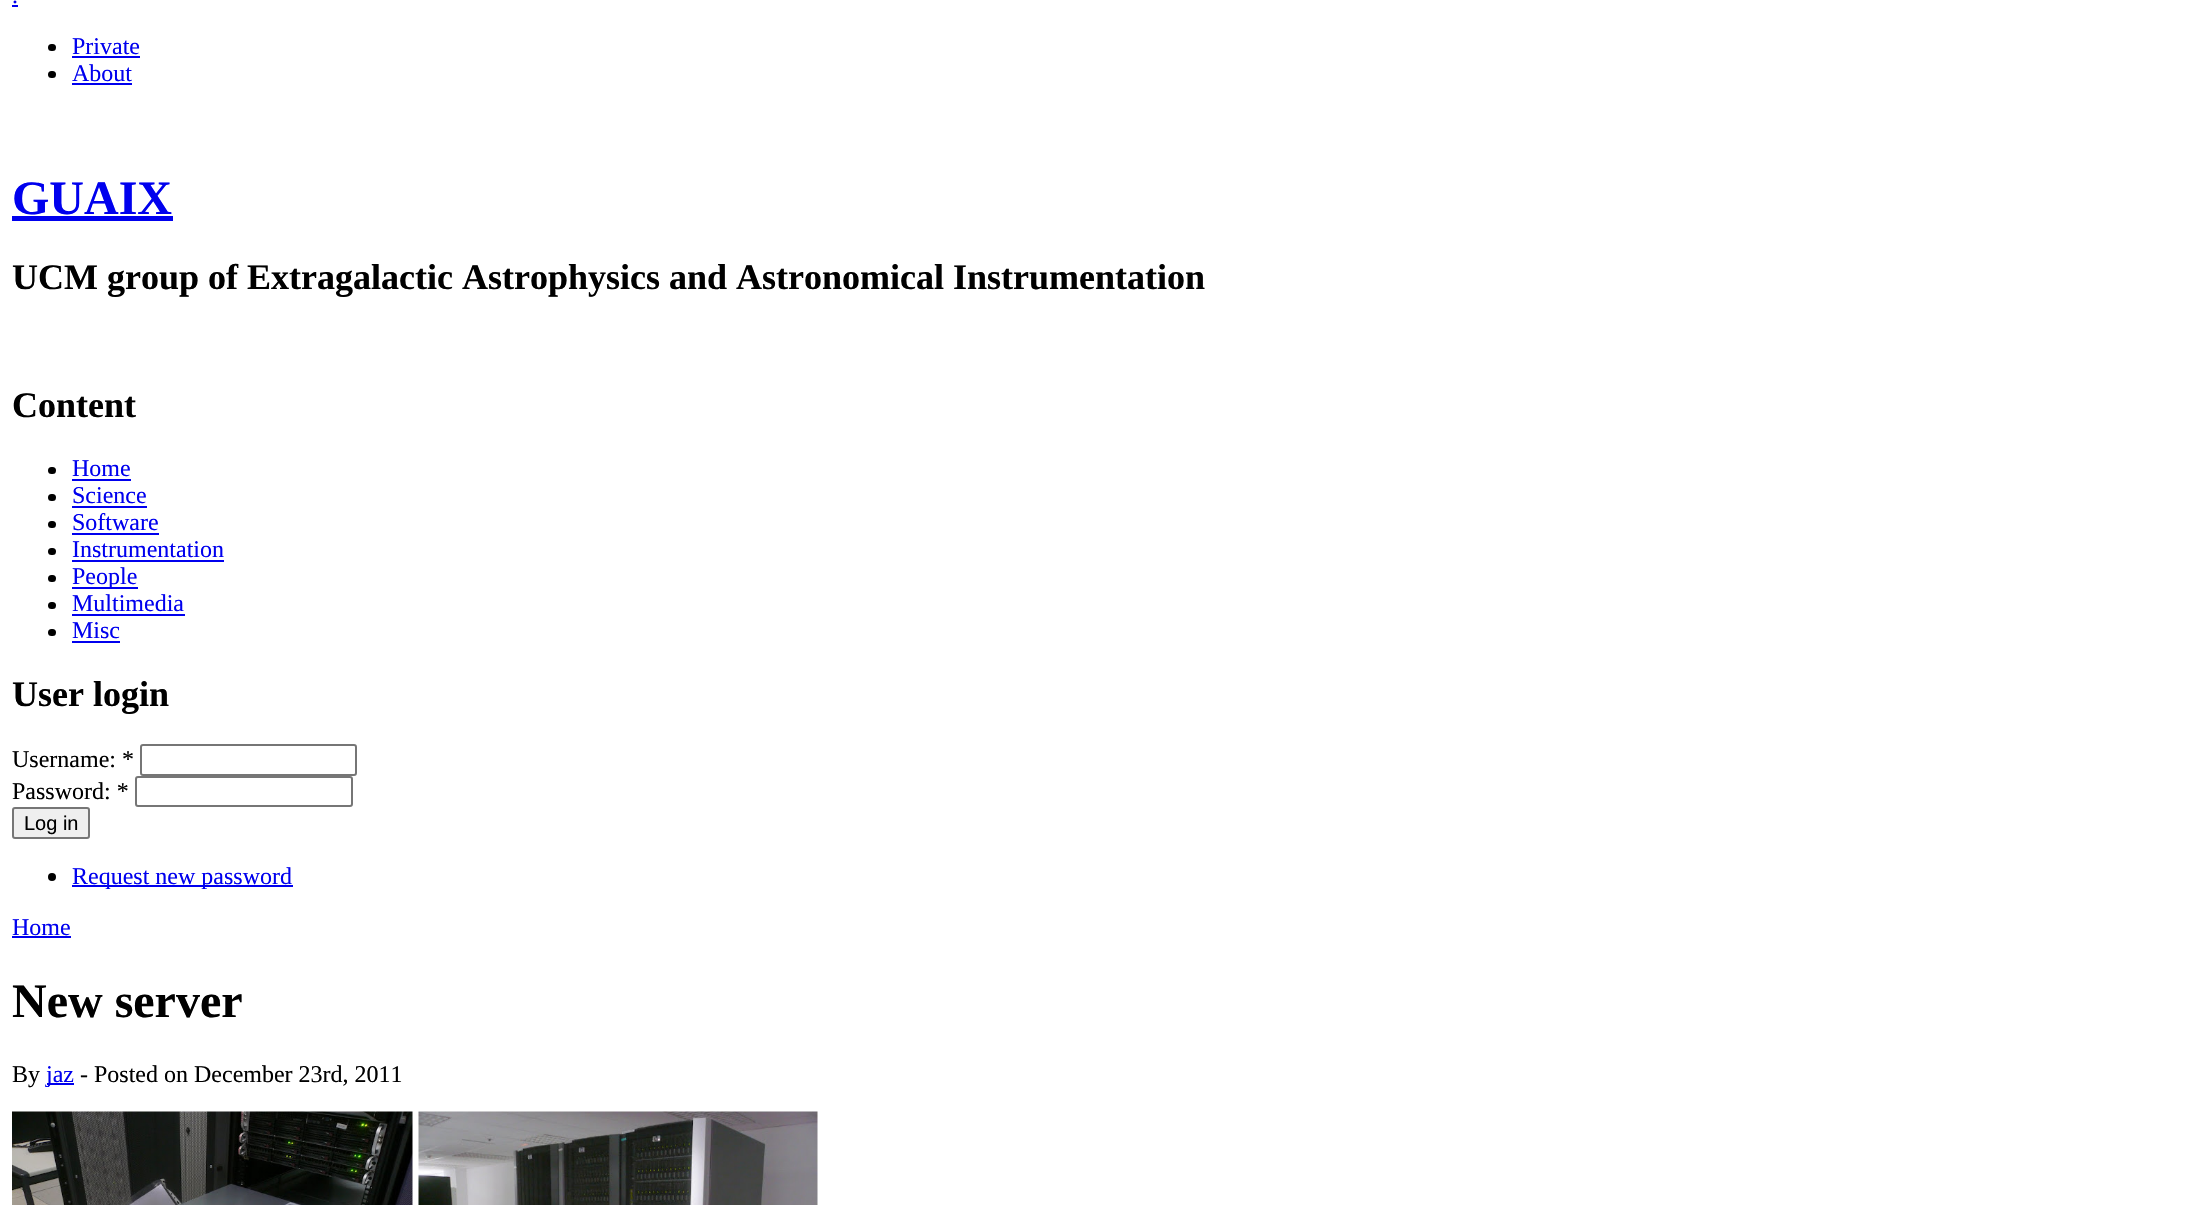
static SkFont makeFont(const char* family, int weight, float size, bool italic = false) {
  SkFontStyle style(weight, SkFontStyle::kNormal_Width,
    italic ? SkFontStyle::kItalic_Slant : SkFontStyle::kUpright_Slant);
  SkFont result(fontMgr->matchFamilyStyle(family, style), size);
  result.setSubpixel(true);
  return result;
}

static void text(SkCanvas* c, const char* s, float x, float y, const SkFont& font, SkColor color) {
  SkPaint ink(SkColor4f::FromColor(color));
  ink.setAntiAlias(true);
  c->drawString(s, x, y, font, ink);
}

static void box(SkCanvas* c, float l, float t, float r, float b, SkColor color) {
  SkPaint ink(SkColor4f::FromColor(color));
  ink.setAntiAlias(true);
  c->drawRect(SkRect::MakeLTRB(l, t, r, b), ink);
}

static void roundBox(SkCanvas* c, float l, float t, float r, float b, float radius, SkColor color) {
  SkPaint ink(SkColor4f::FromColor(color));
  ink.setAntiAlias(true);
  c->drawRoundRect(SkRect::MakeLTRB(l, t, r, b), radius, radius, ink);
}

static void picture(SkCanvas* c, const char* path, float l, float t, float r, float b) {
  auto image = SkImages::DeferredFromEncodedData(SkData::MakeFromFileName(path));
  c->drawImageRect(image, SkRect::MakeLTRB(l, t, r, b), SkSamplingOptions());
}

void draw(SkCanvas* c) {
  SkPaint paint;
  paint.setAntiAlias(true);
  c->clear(0xffffffff);
  SkFont face1 = makeFont("Liberation Serif", 400, 24);
  text(c, ".", 12, 3, face1, 0xff0000ee);
  box(c, 12, 5, 18, 7, 0xff0000ee);
  roundBox(c, 48, 44, 56, 51, 3.5f, 0xff000000);
  text(c, "Private", 72, 54, face1, 0xff0000ee);
  box(c, 72, 56, 140, 58, 0xff0000ee);
  roundBox(c, 48, 71, 56, 78, 3.5f, 0xff000000);
  text(c, "About", 72, 81, face1, 0xff0000ee);
  box(c, 72, 83, 132, 85, 0xff0000ee);
  SkFont face2 = makeFont("Liberation Serif", 700, 48);
  text(c, "GUAIX", 12, 214, face2, 0xff0000ee);
  box(c, 12, 216, 173, 221, 0xff0000ee);
  SkFont face3 = makeFont("Liberation Serif", 700, 36);
  text(c, "UCM group of Extragalactic Astrophysics and Astronomical Instrumentation", 12, 289, face3, 0xff000000);
  text(c, "Content", 12, 417, face3, 0xff000000);
  roundBox(c, 48, 467, 56, 474, 3.5f, 0xff000000);
  text(c, "Home", 72, 476, face1, 0xff0000ee);
  box(c, 72, 479, 131, 481, 0xff0000ee);
  roundBox(c, 48, 494, 56, 501, 3.5f, 0xff000000);
  text(c, "Science", 72, 503, face1, 0xff0000ee);
  box(c, 72, 506, 147, 508, 0xff0000ee);
  roundBox(c, 48, 521, 56, 528, 3.5f, 0xff000000);
  text(c, "Software", 72, 530, face1, 0xff0000ee);
  box(c, 72, 533, 159, 535, 0xff0000ee);
  roundBox(c, 48, 548, 56, 555, 3.5f, 0xff000000);
  text(c, "Instrumentation", 72, 557, face1, 0xff0000ee);
  box(c, 72, 560, 224, 562, 0xff0000ee);
  roundBox(c, 48, 575, 56, 582, 3.5f, 0xff000000);
  box(c, 72, 587, 138, 589, 0xff0000ee);
  text(c, "People", 72, 584, face1, 0xff0000ee);
  roundBox(c, 48, 602, 56, 609, 3.5f, 0xff000000);
  text(c, "Multimedia", 72, 611, face1, 0xff0000ee);
  box(c, 72, 614, 185, 616, 0xff0000ee);
  roundBox(c, 48, 629, 56, 636, 3.5f, 0xff000000);
  text(c, "Misc", 72, 638, face1, 0xff0000ee);
  box(c, 72, 641, 120, 643, 0xff0000ee);
  text(c, "User login", 12, 706, face3, 0xff000000);
  text(c, "Username: *", 12, 767, face1, 0xff000000);
  paint.setStyle(SkPaint::kStroke_Style);
  paint.setStrokeWidth(2);
  paint.setColor(0xff767676);
  c->drawRoundRect(SkRect::MakeLTRB(141, 745, 356, 775), 2, 2, paint);
  text(c, "Password: *", 12, 799, face1, 0xff000000);
  c->drawRoundRect(SkRect::MakeLTRB(136, 777, 352, 806), 2, 2, paint);
  paint.setStyle(SkPaint::kFill_Style);
  paint.setColor(0xffefefef);
  c->drawRoundRect(SkRect::MakeLTRB(13, 808, 89, 838), 2, 2, paint);
  paint.setStyle(SkPaint::kStroke_Style);
  paint.setColor(0xff767676);
  c->drawRoundRect(SkRect::MakeLTRB(13, 808, 89, 838), 2, 2, paint);
  SkFont face4 = makeFont("Liberation Sans", 400, 20);
  text(c, "Log in", 24, 830, face4, 0xff000000);
  paint.setStyle(SkPaint::kFill_Style);
  paint.setColor(0xff000000);
  c->drawCircle(52, 877, 4, paint);
  box(c, 72, 885, 293, 887, 0xff0000ee);
  text(c, "Request new password", 72, 884, face1, 0xff0000ee);
  text(c, "Home", 12, 935, face1, 0xff0000ee);
  box(c, 12, 936, 71, 938, 0xff0000ee);
  text(c, "New server", 12, 1017, face2, 0xff000000);
  text(c, "By", 12, 1082, face1, 0xff000000);
  box(c, 47, 1083, 74, 1085, 0xff0000ee);
  text(c, "jaz", 46, 1082, face1, 0xff0000ee);
  text(c, "- Posted on December 23rd, 2011", 80, 1082, face1, 0xff000000);
  picture(c, "img_01.png", 12, 1111, 413, 1205);
  picture(c, "img_02.png", 418, 1111, 818, 1205);
}
